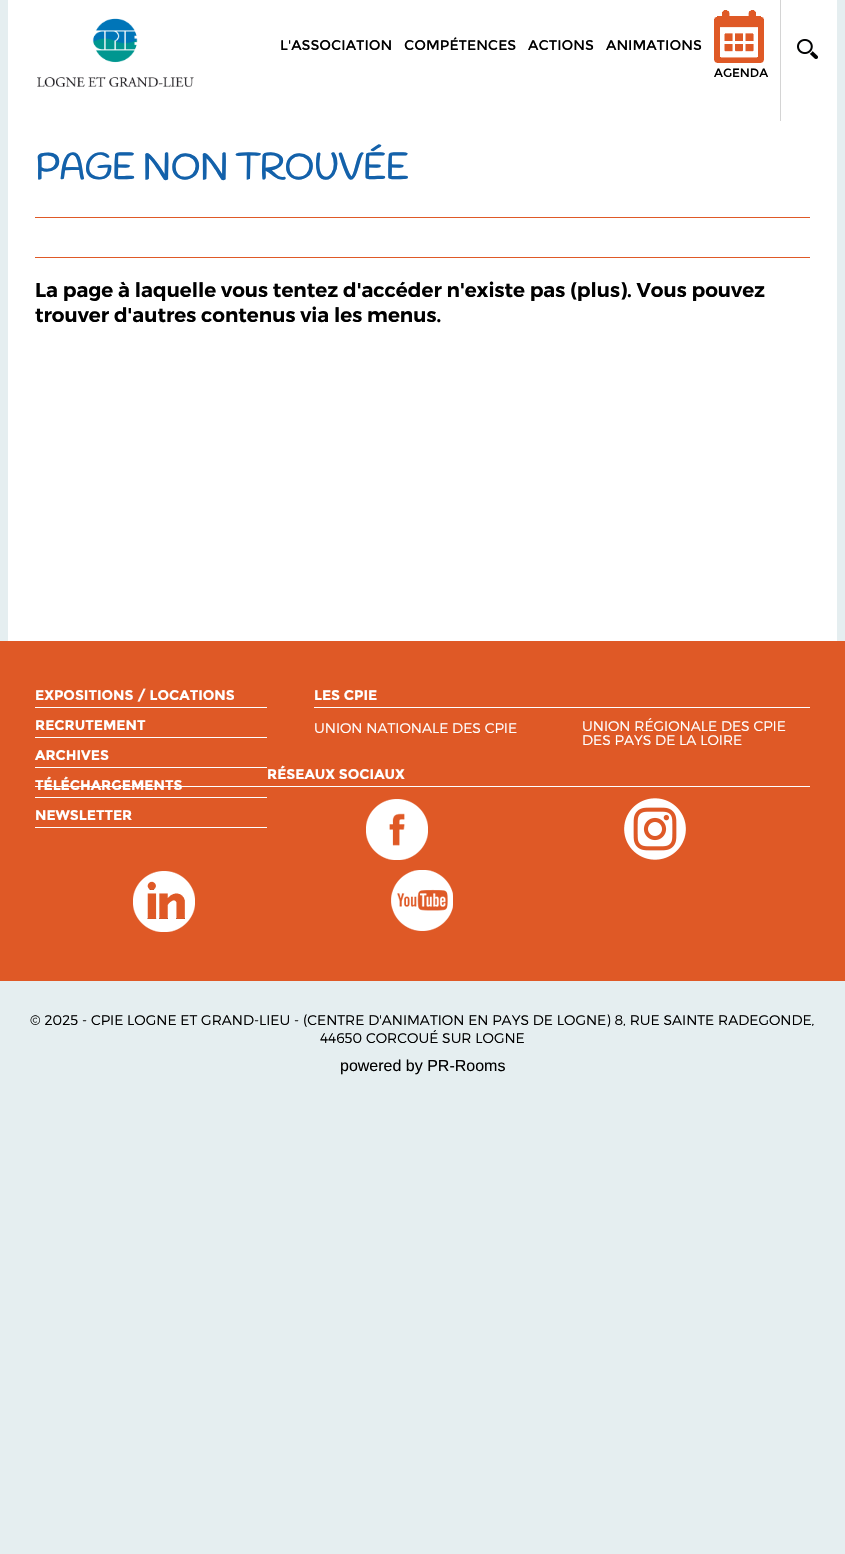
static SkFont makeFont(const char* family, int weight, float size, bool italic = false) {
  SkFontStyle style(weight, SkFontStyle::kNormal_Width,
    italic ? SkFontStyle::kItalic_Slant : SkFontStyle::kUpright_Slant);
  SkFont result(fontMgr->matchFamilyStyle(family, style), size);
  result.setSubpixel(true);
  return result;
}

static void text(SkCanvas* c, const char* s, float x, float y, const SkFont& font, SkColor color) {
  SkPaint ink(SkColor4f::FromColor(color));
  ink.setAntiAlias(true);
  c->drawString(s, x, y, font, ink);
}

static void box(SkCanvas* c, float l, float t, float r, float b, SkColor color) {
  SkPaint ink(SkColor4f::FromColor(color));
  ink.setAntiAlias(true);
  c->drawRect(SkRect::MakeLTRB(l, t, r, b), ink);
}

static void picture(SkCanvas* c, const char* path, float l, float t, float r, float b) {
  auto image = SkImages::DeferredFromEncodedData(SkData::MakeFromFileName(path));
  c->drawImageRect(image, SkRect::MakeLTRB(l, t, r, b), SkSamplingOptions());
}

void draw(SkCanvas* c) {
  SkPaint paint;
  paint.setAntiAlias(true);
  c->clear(0xffe5eef0);
  box(c, 8, 0, 837, 641, 0xffffffff);
  picture(c, "img_01.png", 37, 18, 194, 87);
  box(c, 780, 0, 781, 121, 0xffd4d4d4);
  SkFont face1 = makeFont("Montserrat", 400, 14);
  text(c, "L'ASSOCIATION", 280, 50, face1, 0xff000000);
  text(c, "COMPÉTENCES", 404, 50, face1, 0xff000000);
  text(c, "ACTIONS", 528, 50, face1, 0xff000000);
  text(c, "ANIMATIONS", 606, 50, face1, 0xff000000);
  picture(c, "img_02.png", 714, 10, 764, 63);
  SkFont face2 = makeFont("Montserrat", 400, 12);
  text(c, "AGENDA", 714, 77, face2, 0xff000000);
  picture(c, "img_03.png", 797, 39, 818, 59);
  box(c, 35, 217, 810, 218, 0xffdf5926);
  SkFont face3 = makeFont("Handlee", 700, 36);
  text(c, "PAGE NON TROUVÉE", 35, 179, face3, 0xff1361aa);
  box(c, 35, 257, 810, 258, 0xffdf5926);
  SkFont face4 = makeFont("Montserrat", 600, 20);
  text(c, "La page à laquelle vous tentez d'accéder n'existe pas (plus). Vous pouvez", 35, 297, face4, 0xff000000);
  text(c, "trouver d'autres contenus via les menus.", 35, 322, face4, 0xff000000);
  box(c, 0, 641, 845, 981, 0xffdf5926);
  box(c, 35, 707, 267, 708, 0xffffffff);
  SkFont face5 = makeFont("Montserrat", 700, 14);
  text(c, "EXPOSITIONS / LOCATIONS", 35, 700, face5, 0xffffffff);
  box(c, 35, 737, 267, 738, 0xffffffff);
  text(c, "RECRUTEMENT", 35, 730, face5, 0xffffffff);
  box(c, 35, 767, 267, 768, 0xffffffff);
  text(c, "ARCHIVES", 35, 760, face5, 0xffffffff);
  box(c, 35, 797, 267, 798, 0xffffffff);
  box(c, 35, 786, 810, 787, 0xffffffff);
  text(c, "TÉLÉCHARGEMENTS", 35, 790, face5, 0xffffffff);
  box(c, 35, 827, 267, 828, 0xffffffff);
  text(c, "NEWSLETTER", 35, 820, face5, 0xffffffff);
  box(c, 314, 707, 810, 708, 0xffffffff);
  text(c, "LES CPIE", 314, 700, face5, 0xffffffff);
  SkFont face6 = makeFont("Montserrat", 300, 14);
  text(c, "UNION NATIONALE DES CPIE", 314, 733, face6, 0xffffffff);
  text(c, "UNION RÉGIONALE DES CPIE", 582, 731, face6, 0xffffffff);
  text(c, "DES PAYS DE LA LOIRE", 582, 745, face6, 0xffffffff);
  text(c, "RÉSEAUX SOCIAUX", 267, 779, face5, 0xffffffff);
  picture(c, "img_04.png", 366, 799, 428, 860);
  picture(c, "img_05.png", 624, 798, 686, 860);
  picture(c, "img_06.png", 133, 871, 195, 932);
  picture(c, "img_07.png", 391, 870, 453, 931);
  text(c, "© 2025 - CPIE LOGNE ET GRAND-LIEU - (CENTRE D'ANIMATION EN PAYS DE LOGNE) 8, RUE SAINTE RADEGONDE,", 30, 1025, face6, 0xff000000);
  text(c, "44650 CORCOUÉ SUR LOGNE", 320, 1043, face6, 0xff000000);
  SkFont face7 = makeFont("Liberation Sans", 400, 16);
  text(c, "powered by PR-Rooms", 340, 1071, face7, 0xff000000);
}
